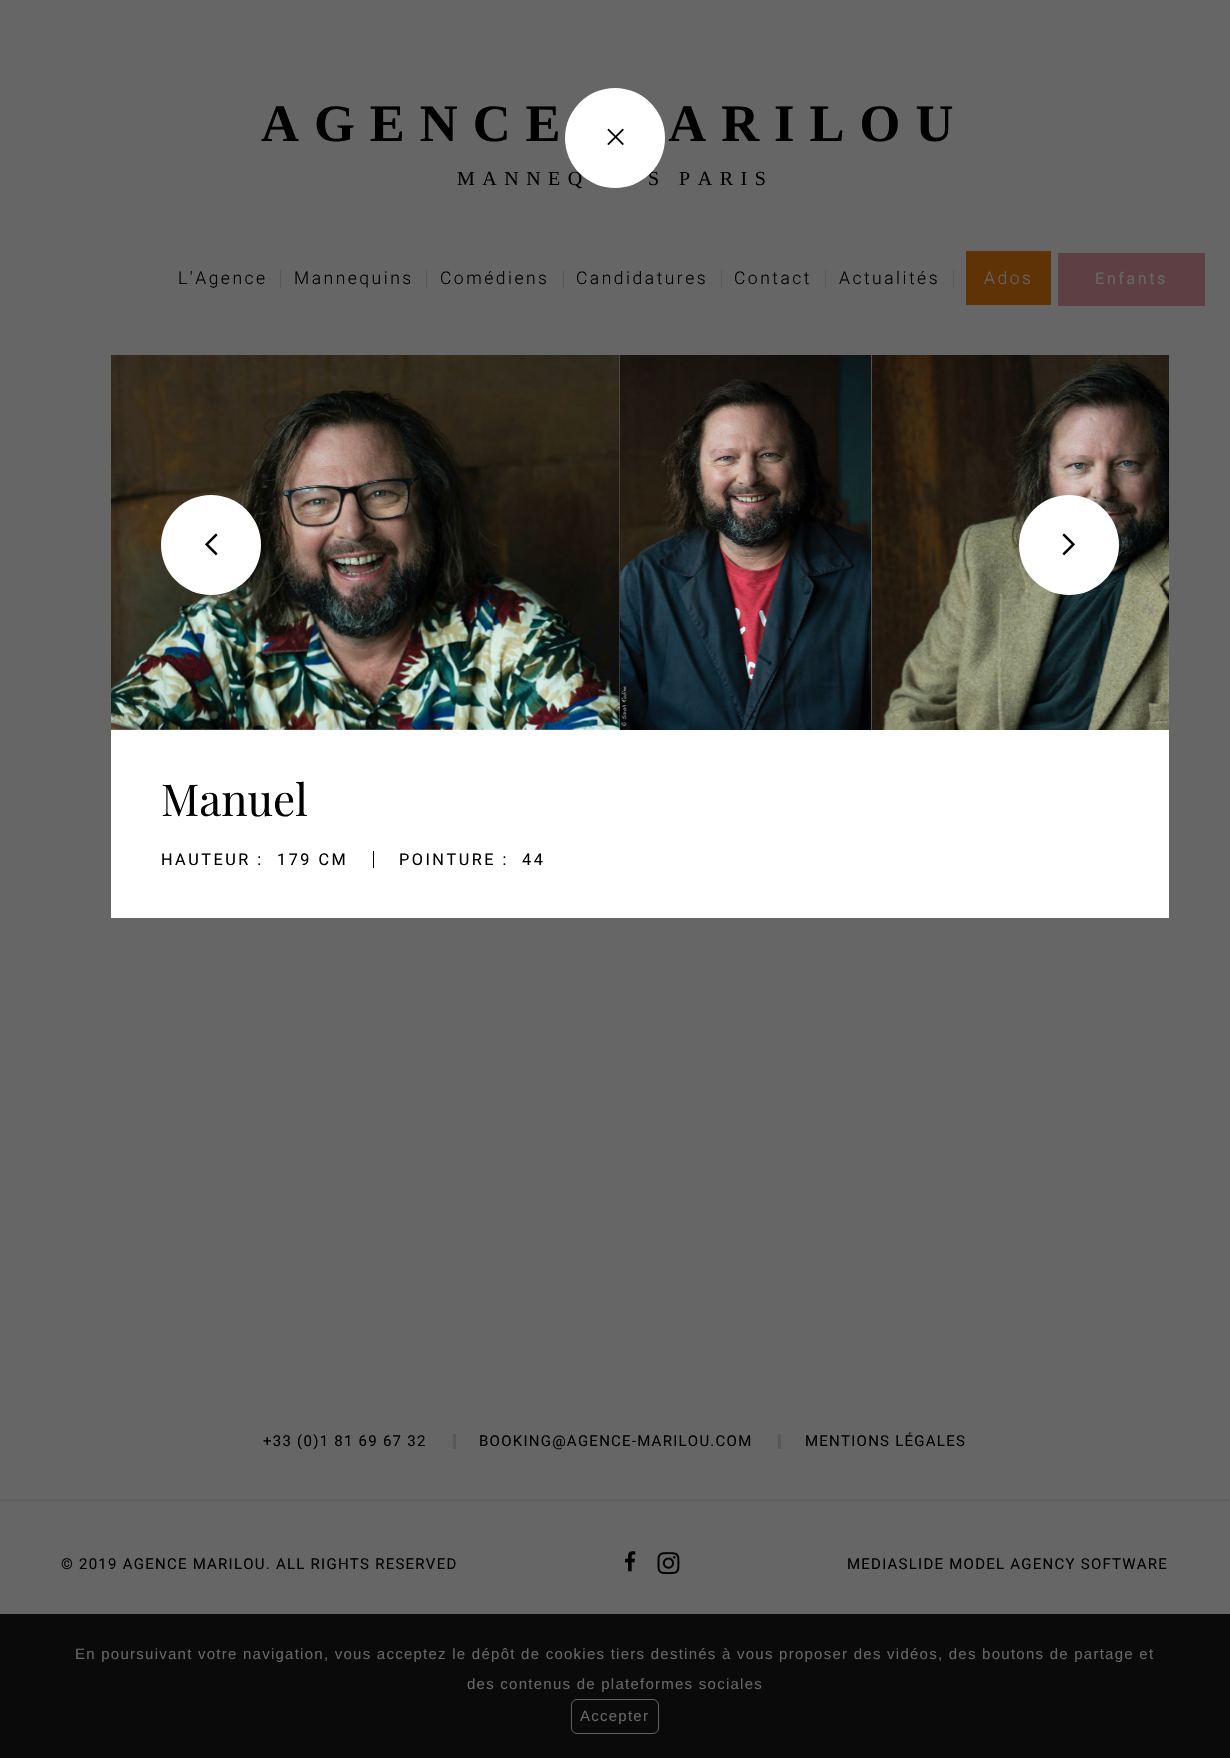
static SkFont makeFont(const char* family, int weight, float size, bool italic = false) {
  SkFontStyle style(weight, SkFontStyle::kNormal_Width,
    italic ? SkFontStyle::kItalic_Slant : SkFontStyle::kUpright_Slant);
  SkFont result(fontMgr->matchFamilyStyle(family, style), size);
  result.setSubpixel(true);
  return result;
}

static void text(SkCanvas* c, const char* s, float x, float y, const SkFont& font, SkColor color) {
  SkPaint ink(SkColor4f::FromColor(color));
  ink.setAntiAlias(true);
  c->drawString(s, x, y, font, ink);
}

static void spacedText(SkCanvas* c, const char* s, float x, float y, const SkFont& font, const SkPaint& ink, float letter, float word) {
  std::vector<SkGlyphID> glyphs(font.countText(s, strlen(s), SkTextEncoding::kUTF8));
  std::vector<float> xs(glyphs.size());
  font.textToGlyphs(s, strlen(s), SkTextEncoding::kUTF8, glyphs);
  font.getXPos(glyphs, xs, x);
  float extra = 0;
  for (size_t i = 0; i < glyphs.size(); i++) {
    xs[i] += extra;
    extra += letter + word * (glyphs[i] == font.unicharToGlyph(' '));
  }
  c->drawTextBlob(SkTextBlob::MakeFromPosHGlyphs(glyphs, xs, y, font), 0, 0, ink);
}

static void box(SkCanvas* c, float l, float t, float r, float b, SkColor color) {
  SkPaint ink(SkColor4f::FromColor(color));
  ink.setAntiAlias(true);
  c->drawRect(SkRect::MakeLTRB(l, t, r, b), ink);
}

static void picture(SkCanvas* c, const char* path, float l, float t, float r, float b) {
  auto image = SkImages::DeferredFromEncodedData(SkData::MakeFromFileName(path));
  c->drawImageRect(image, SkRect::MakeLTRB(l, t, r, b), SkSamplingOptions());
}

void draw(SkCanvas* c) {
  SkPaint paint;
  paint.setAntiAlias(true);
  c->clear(0xff666666);
  SkFont face1 = makeFont("Liberation Serif", 700, 52.5f);
  paint.setColor(0xff000000);
  spacedText(c, "AGENCE MARILOU", 261, 141, face1, paint, 15, 0);
  SkFont face2 = makeFont("Liberation Serif", 400, 20);
  spacedText(c, "MANNEQ", 457, 185, face2, paint, 7.5f, 0);
  spacedText(c, "S PARIS", 648, 185, face2, paint, 7.5f, 0);
  box(c, 280, 270, 281, 288, 0xff585858);
  SkFont face3 = makeFont("Roboto", 300, 17.5f);
  spacedText(c, "L'Agence", 178, 284, face3, paint, 2.5f, 0);
  box(c, 426, 270, 427, 288, 0xff585858);
  spacedText(c, "Mannequins", 294, 284, face3, paint, 2.5f, 0);
  box(c, 563, 270, 564, 288, 0xff585858);
  spacedText(c, "Comédiens", 440, 284, face3, paint, 2.5f, 0);
  box(c, 721, 270, 722, 288, 0xff585858);
  spacedText(c, "Candidatures", 576, 284, face3, paint, 2.5f, 0);
  box(c, 825, 270, 826, 288, 0xff585858);
  spacedText(c, "Contact", 734, 284, face3, paint, 2.5f, 0);
  box(c, 953, 270, 954, 288, 0xff585858);
  spacedText(c, "Actualités", 839, 284, face3, paint, 2.5f, 0);
  box(c, 966, 251, 1051, 305, 0xff5f3306);
  paint.setColor(0xff666666);
  spacedText(c, "Ados", 984, 284, face3, paint, 2.5f, 0);
  box(c, 1058, 253, 1205, 306, 0xff5e3f44);
  SkFont face4 = makeFont("Roboto", 400, 16.25f);
  spacedText(c, "Enfants", 1095, 284, face4, paint, 2.5f, 0);
  paint.setColor(0xffffffff);
  c->drawCircle(615, 138, 50, paint);
  picture(c, "img_01.png", 607, 128, 624, 145);
  box(c, 111, 355, 1169, 918, 0xffffffff);
  picture(c, "img_05.png", 111, 729, 401, 730);
  picture(c, "img_06.png", 399, 729, 401, 730);
  picture(c, "img_02.png", 111, 355, 620, 730);
  picture(c, "img_03.png", 619, 355, 871, 730);
  picture(c, "img_04.png", 871, 355, 1169, 730);
  c->drawCircle(211, 545, 50, paint);
  picture(c, "img_07.png", 205, 533, 218, 556);
  c->drawCircle(1069, 545, 50, paint);
  picture(c, "img_08.png", 1062, 533, 1075, 556);
  SkFont face5 = makeFont("Playfair Display", 400, 44);
  text(c, "Manuel", 161, 816, face5, 0xff000000);
  box(c, 373, 851, 374, 868, 0xff000000);
  paint.setColor(0xff000000);
  spacedText(c, "HAUTEUR :", 161, 865, face4, paint, 2.5f, 0);
  spacedText(c, "179 CM", 277, 865, face4, paint, 2.5f, 0);
  spacedText(c, "POINTURE :", 399, 865, face4, paint, 2.5f, 0);
  spacedText(c, "44", 522, 865, face4, paint, 2.5f, 0);
  box(c, 453, 1434, 456, 1449, 0xff585858);
  SkFont face6 = makeFont("Roboto", 400, 15);
  spacedText(c, "+33 (0)1 81 69 67 32", 263, 1446, face6, paint, 1.25f, 0);
  box(c, 778, 1434, 781, 1449, 0xff585858);
  spacedText(c, "BOOKING@AGENCE-MARILOU.COM", 479, 1446, face6, paint, 1.25f, 0);
  spacedText(c, "MENTIONS LÉGALES", 805, 1446, face6, paint, 1.25f, 0);
  box(c, 0, 1499, 1230, 1502, 0xff616161);
  spacedText(c, "© 2019 AGENCE MARILOU. ALL RIGHTS RESERVED", 61, 1569, face6, paint, 1.25f, 0);
  picture(c, "img_09.png", 625, 1551, 636, 1572);
  picture(c, "img_10.png", 657, 1552, 680, 1575);
  spacedText(c, "MEDIASLIDE MODEL AGENCY SOFTWARE", 847, 1569, face6, paint, 1.25f, 0);
  box(c, 0, 1614, 1230, 1758, 0xff0a0a0a);
  SkFont face7 = makeFont("Liberation Sans", 400, 15);
  paint.setColor(0xff666666);
  spacedText(c, "En poursuivant votre navigation, vous acceptez le dépôt de cookies tiers destinés à vous proposer des vidéos, des boutons de partage et", 75, 1659, face7, paint, 1.25f, 0);
  spacedText(c, "des contenus de plateformes sociales", 467, 1689, face7, paint, 1.25f, 0);
  paint.setStyle(SkPaint::kStroke_Style);
  paint.setStrokeWidth(1);
  paint.setColor(0xff616161);
  c->drawRoundRect(SkRect::MakeLTRB(571.5f, 1699.5f, 658.5f, 1733.5f), 5.5f, 5.5f, paint);
  paint.setStyle(SkPaint::kFill_Style);
  paint.setColor(0xff666666);
  spacedText(c, "Accepter", 580, 1721, face7, paint, 1.25f, 0);
}
